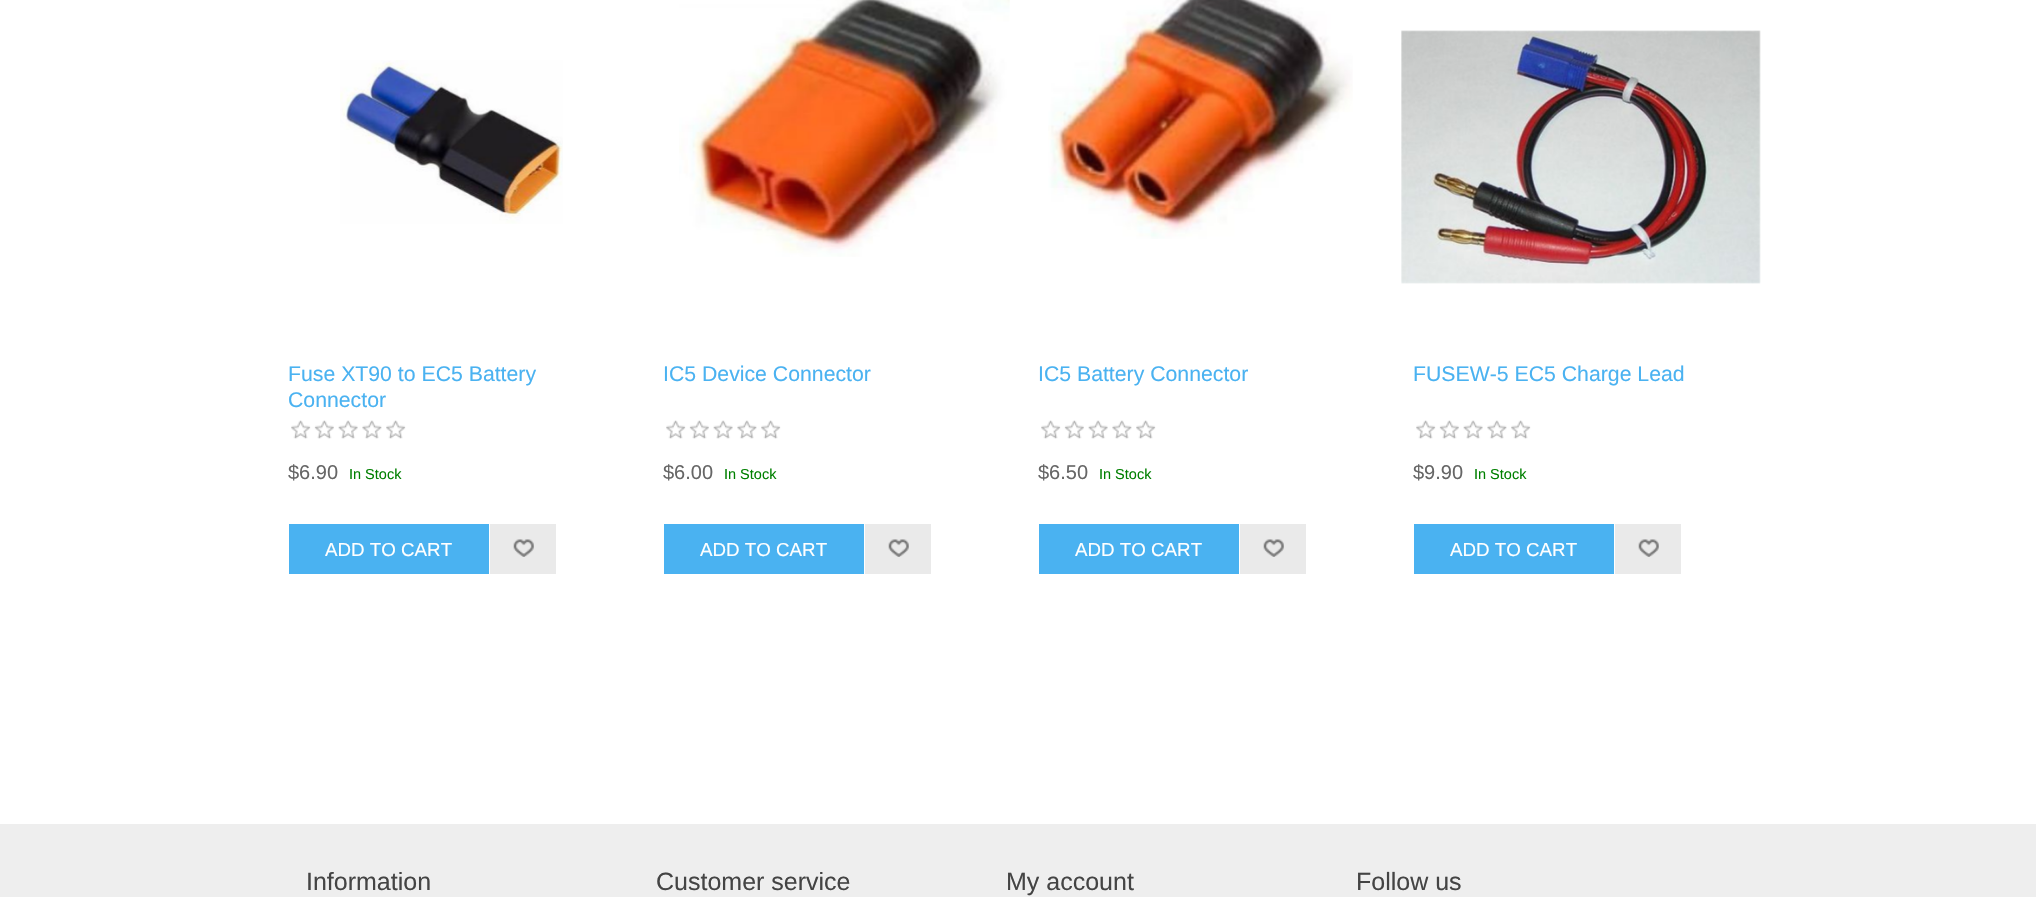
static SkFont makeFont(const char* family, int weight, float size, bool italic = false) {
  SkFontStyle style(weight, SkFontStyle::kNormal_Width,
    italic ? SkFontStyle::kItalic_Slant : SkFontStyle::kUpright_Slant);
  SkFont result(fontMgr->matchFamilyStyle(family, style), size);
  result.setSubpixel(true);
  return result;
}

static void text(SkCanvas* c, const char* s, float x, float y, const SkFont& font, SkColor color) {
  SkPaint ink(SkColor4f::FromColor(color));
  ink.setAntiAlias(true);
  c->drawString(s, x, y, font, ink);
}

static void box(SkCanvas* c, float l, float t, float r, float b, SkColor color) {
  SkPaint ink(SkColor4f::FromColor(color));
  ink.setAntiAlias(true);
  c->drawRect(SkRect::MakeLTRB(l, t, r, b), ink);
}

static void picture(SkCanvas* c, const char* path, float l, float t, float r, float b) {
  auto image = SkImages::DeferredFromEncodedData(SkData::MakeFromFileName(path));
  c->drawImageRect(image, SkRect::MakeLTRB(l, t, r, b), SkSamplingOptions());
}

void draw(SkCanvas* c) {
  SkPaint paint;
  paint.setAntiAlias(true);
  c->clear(0xffffffff);
  picture(c, "img_01.png", 340, 60, 563, 224);
  SkFont face1 = makeFont("Liberation Sans", 400, 21.25f);
  text(c, "Fuse XT90 to EC5 Battery", 288, 381, face1, 0xff4ab2f1);
  text(c, "Connector", 288, 407, face1, 0xff4ab2f1);
  picture(c, "img_02.png", 291, 420, 406, 439);
  SkFont face2 = makeFont("Liberation Sans", 400, 20);
  text(c, "$6.90", 288, 479, face2, 0xff666666);
  SkFont face3 = makeFont("Liberation Sans", 400, 14.5f);
  text(c, "In Stock", 349, 479, face3, 0xff008000);
  box(c, 289, 524, 489, 574, 0xff4ab2f1);
  SkFont face4 = makeFont("Liberation Sans", 400, 18.75f);
  text(c, "ADD TO CART", 325, 556, face4, 0xffffffff);
  box(c, 490, 524, 556, 574, 0xffeaeaea);
  picture(c, "img_03.png", 513, 539, 534, 557);
  picture(c, "img_04.png", 679, 0, 1010, 257);
  text(c, "IC5 Device Connector", 663, 381, face1, 0xff4ab2f1);
  picture(c, "img_05.png", 666, 420, 781, 439);
  text(c, "$6.00", 663, 479, face2, 0xff666666);
  text(c, "In Stock", 724, 479, face3, 0xff008000);
  box(c, 664, 524, 864, 574, 0xff4ab2f1);
  text(c, "ADD TO CART", 700, 556, face4, 0xffffffff);
  box(c, 865, 524, 931, 574, 0xffeaeaea);
  picture(c, "img_03.png", 888, 539, 909, 557);
  picture(c, "img_06.png", 1048, 0, 1353, 239);
  text(c, "IC5 Battery Connector", 1038, 381, face1, 0xff4ab2f1);
  picture(c, "img_07.png", 1041, 420, 1156, 439);
  text(c, "$6.50", 1038, 479, face2, 0xff666666);
  text(c, "In Stock", 1099, 479, face3, 0xff008000);
  box(c, 1039, 524, 1239, 574, 0xff4ab2f1);
  text(c, "ADD TO CART", 1075, 556, face4, 0xffffffff);
  box(c, 1240, 524, 1306, 574, 0xffeaeaea);
  picture(c, "img_08.png", 1263, 539, 1284, 557);
  picture(c, "img_09.png", 1401, 30, 1761, 284);
  text(c, "FUSEW-5 EC5 Charge Lead", 1413, 381, face1, 0xff4ab2f1);
  picture(c, "img_10.png", 1416, 420, 1531, 439);
  text(c, "$9.90", 1413, 479, face2, 0xff666666);
  text(c, "In Stock", 1474, 479, face3, 0xff008000);
  box(c, 1414, 524, 1614, 574, 0xff4ab2f1);
  text(c, "ADD TO CART", 1450, 556, face4, 0xffffffff);
  box(c, 1615, 524, 1681, 574, 0xffeaeaea);
  picture(c, "img_11.png", 1638, 539, 1659, 557);
  box(c, 0, 824, 2036, 897, 0xffeeeeee);
  SkFont face5 = makeFont("Liberation Sans", 400, 25);
  text(c, "Information", 306, 890, face5, 0xff444444);
  text(c, "Customer service", 656, 890, face5, 0xff444444);
  text(c, "My account", 1006, 890, face5, 0xff444444);
  text(c, "Follow us", 1356, 890, face5, 0xff444444);
}
